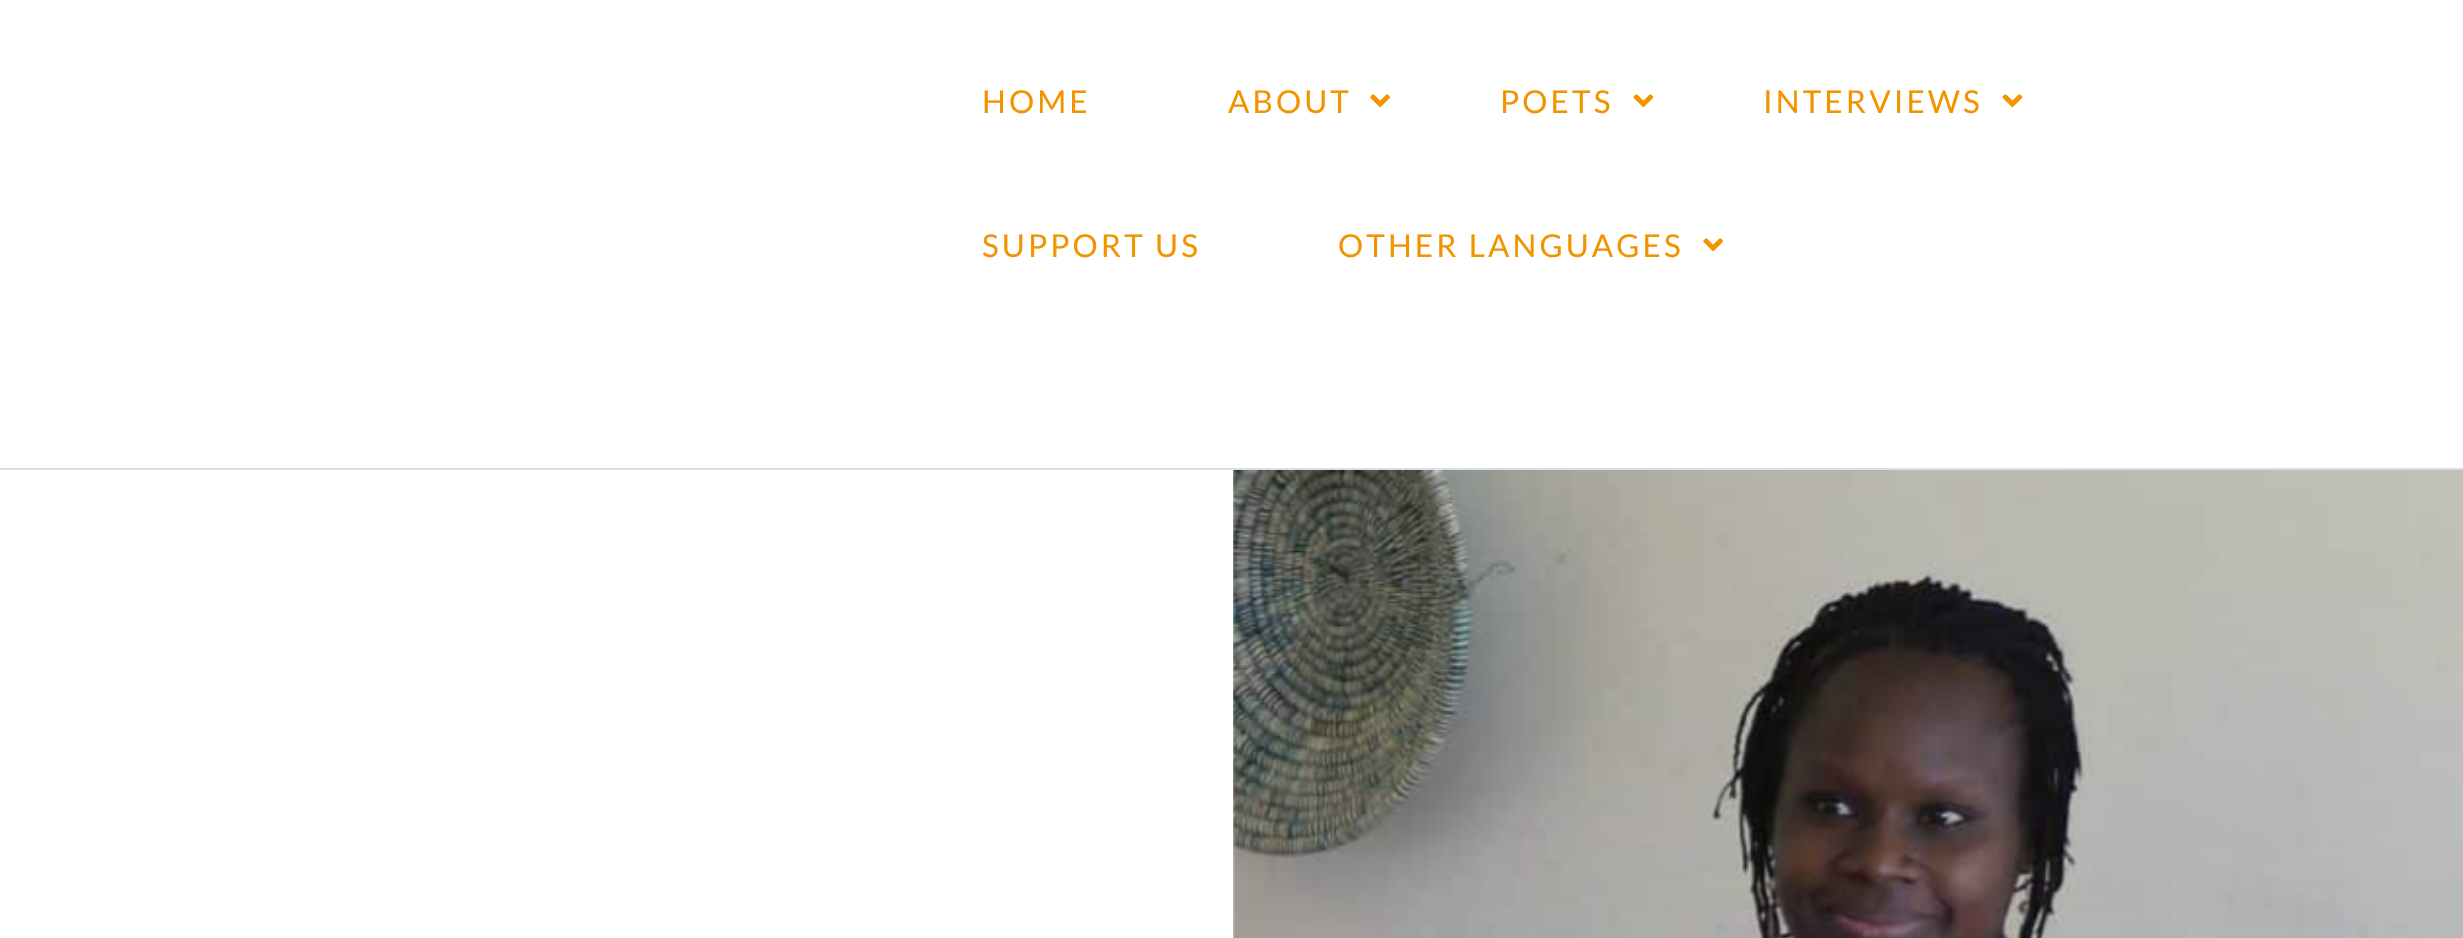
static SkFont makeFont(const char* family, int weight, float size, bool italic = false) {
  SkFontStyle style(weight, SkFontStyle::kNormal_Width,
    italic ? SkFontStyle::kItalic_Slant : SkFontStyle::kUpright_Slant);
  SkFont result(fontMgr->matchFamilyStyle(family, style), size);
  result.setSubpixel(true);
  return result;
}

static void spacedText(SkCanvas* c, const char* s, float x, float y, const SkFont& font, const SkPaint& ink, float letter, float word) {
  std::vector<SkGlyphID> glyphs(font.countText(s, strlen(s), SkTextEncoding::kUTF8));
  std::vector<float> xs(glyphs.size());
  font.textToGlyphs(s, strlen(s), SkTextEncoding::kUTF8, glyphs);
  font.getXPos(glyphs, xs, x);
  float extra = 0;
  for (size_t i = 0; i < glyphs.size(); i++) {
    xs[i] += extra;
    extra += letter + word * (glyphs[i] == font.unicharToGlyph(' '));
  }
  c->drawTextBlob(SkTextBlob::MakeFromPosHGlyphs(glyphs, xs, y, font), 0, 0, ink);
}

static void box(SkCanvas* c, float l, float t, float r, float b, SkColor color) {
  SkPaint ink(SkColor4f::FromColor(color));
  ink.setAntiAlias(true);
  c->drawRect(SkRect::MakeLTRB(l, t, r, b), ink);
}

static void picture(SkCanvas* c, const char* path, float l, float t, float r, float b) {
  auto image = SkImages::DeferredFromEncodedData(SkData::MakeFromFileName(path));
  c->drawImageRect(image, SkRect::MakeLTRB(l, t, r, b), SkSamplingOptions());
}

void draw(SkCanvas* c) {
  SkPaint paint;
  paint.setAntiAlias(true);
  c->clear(0xffffffff);
  SkFont face1 = makeFont("Lato", 400, 31.5f);
  paint.setColor(0xfff29400);
  spacedText(c, "HOME", 982, 113, face1, paint, 3.1f, 0);
  spacedText(c, "ABOUT", 1228, 113, face1, paint, 3.1f, 0);
  picture(c, "img_01.png", 1370, 94, 1390, 107);
  spacedText(c, "POETS", 1500, 113, face1, paint, 3.1f, 0);
  picture(c, "img_02.png", 1633, 94, 1654, 107);
  spacedText(c, "INTERVIEWS", 1763, 113, face1, paint, 3.1f, 0);
  picture(c, "img_02.png", 2002, 94, 2023, 107);
  spacedText(c, "SUPPORT US", 982, 257, face1, paint, 3.1f, 0);
  spacedText(c, "OTHER LANGUAGES", 1338, 257, face1, paint, 3.1f, 0);
  picture(c, "img_01.png", 1703, 238, 1723, 251);
  box(c, 0, 468, 2463, 470, 0xffd9dfe5);
  picture(c, "img_03.png", 1233, 470, 2463, 938);
}
